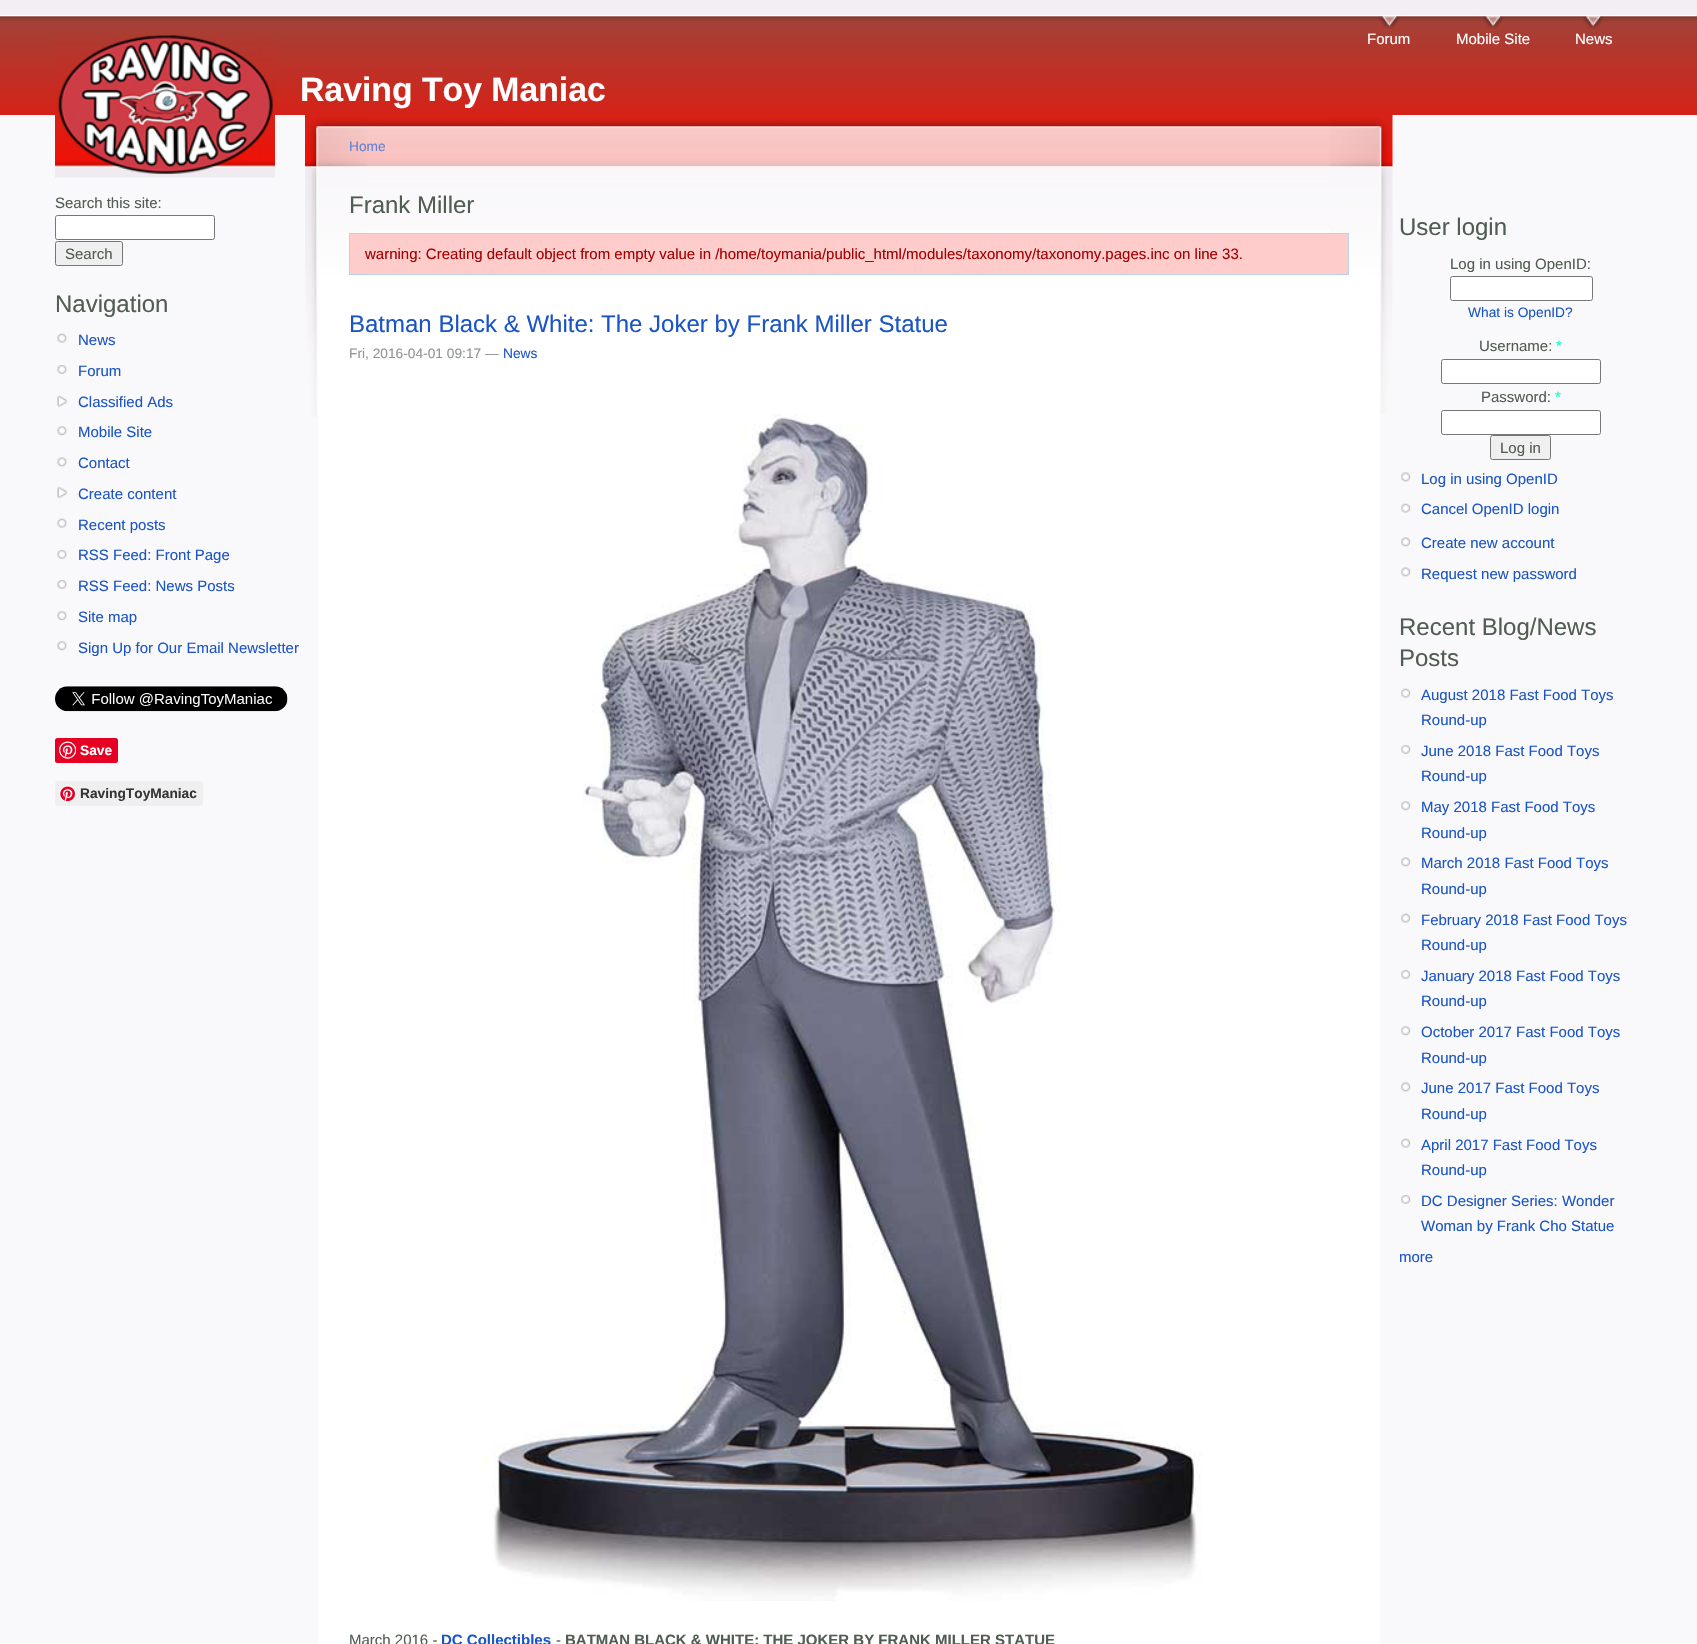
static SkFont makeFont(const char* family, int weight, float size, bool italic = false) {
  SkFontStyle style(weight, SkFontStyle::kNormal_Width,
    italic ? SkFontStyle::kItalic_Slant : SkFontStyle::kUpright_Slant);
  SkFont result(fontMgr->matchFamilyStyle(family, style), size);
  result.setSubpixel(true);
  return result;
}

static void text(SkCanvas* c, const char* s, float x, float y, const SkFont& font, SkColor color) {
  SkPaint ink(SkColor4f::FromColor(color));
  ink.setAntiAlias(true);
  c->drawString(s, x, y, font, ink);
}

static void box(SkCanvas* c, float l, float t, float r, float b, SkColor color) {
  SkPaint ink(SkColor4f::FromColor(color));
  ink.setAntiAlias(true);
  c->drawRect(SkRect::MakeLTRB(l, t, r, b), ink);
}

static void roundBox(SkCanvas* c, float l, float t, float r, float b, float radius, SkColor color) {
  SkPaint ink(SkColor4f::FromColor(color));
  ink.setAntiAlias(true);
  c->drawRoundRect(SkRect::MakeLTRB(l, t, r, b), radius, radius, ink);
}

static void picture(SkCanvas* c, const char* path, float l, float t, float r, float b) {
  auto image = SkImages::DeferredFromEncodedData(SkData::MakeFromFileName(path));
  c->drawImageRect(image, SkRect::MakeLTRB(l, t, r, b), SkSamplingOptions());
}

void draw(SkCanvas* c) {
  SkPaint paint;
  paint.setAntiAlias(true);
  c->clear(0xfff9f8fa);
  box(c, 0, 0, 1697, 15, 0xfff2eef3);
  picture(c, "img_01.png", 0, 15, 1697, 115);
  picture(c, "img_02.png", 1379, 16, 1400, 29);
  SkFont face1 = makeFont("Liberation Sans", 400, 15);
  text(c, "Forum", 1367, 44, face1, 0xffffffff);
  picture(c, "img_03.png", 1483, 16, 1504, 29);
  text(c, "Mobile Site", 1456, 44, face1, 0xffffffff);
  picture(c, "img_03.png", 1583, 16, 1604, 29);
  text(c, "News", 1575, 44, face1, 0xffffffff);
  picture(c, "img_04.png", 55, 35, 275, 178);
  SkFont face2 = makeFont("Liberation Sans", 700, 33.75f);
  text(c, "Raving Toy Maniac", 300, 101, face2, 0xffffffff);
  text(c, "Search this site:", 55, 208, face1, 0xff515d52);
  paint.setColor(0xffffffff);
  c->drawRoundRect(SkRect::MakeLTRB(55.5f, 215.5f, 214.5f, 239.5f), 2, 2, paint);
  paint.setStyle(SkPaint::kStroke_Style);
  paint.setStrokeWidth(1);
  paint.setColor(0xff767676);
  c->drawRoundRect(SkRect::MakeLTRB(55.5f, 215.5f, 214.5f, 239.5f), 2, 2, paint);
  paint.setStyle(SkPaint::kFill_Style);
  paint.setColor(0xffefefef);
  c->drawRoundRect(SkRect::MakeLTRB(55.5f, 241.5f, 122.5f, 265.5f), 2, 2, paint);
  paint.setStyle(SkPaint::kStroke_Style);
  paint.setColor(0xff767676);
  c->drawRoundRect(SkRect::MakeLTRB(55.5f, 241.5f, 122.5f, 265.5f), 2, 2, paint);
  text(c, "Search", 65, 259, face1, 0xff515d52);
  SkFont face3 = makeFont("Liberation Sans", 400, 24);
  text(c, "Navigation", 55, 312, face3, 0xff515d52);
  picture(c, "img_05.png", 57, 333, 67, 343);
  text(c, "News", 78, 345, face1, 0xff1b55c5);
  picture(c, "img_06.png", 57, 365, 67, 374);
  text(c, "Forum", 78, 376, face1, 0xff1b55c5);
  picture(c, "img_07.png", 57, 395, 68, 408);
  text(c, "Classified Ads", 78, 407, face1, 0xff1b55c5);
  picture(c, "img_08.png", 57, 426, 67, 436);
  text(c, "Mobile Site", 78, 437, face1, 0xff1b55c5);
  picture(c, "img_09.png", 57, 457, 67, 467);
  text(c, "Contact", 78, 468, face1, 0xff1b55c5);
  picture(c, "img_10.png", 57, 486, 68, 499);
  text(c, "Create content", 78, 499, face1, 0xff1b55c5);
  picture(c, "img_05.png", 57, 518, 67, 528);
  text(c, "Recent posts", 78, 530, face1, 0xff1b55c5);
  picture(c, "img_06.png", 57, 550, 67, 559);
  text(c, "RSS Feed: Front Page", 78, 560, face1, 0xff1b55c5);
  picture(c, "img_06.png", 57, 580, 67, 589);
  text(c, "RSS Feed: News Posts", 78, 591, face1, 0xff1b55c5);
  picture(c, "img_08.png", 57, 611, 67, 621);
  text(c, "Site map", 78, 622, face1, 0xff1b55c5);
  picture(c, "img_08.png", 57, 641, 67, 651);
  text(c, "Sign Up for Our Email Newsletter", 78, 653, face1, 0xff1b55c5);
  picture(c, "img_11.png", 55, 686, 288, 712);
  roundBox(c, 55, 738, 118, 763, 2.5f, 0xffe60023);
  picture(c, "img_12.png", 59, 741, 76, 759);
  SkFont face4 = makeFont("Liberation Sans", 700, 13.75f);
  text(c, "Save", 80, 755, face4, 0xffffffff);
  roundBox(c, 55, 781, 203, 806, 4, 0xffefefef);
  picture(c, "img_13.png", 59, 785, 76, 803);
  text(c, "RavingToyManiac", 80, 798, face4, 0xff363636);
  box(c, 318, 230, 1380, 1644, 0xffffffff);
  picture(c, "img_14.png", 367, 115, 1330, 230);
  picture(c, "img_15.png", 1330, 115, 1393, 414);
  picture(c, "img_16.png", 305, 115, 367, 417);
  SkFont face5 = makeFont("Liberation Sans", 400, 13.75f);
  text(c, "Home", 349, 151, face5, 0xff6382d5);
  text(c, "Frank Miller", 349, 213, face3, 0xff515d52);
  paint.setStyle(SkPaint::kFill_Style);
  paint.setColor(0xffffcccc);
  c->drawRect(SkRect::MakeLTRB(349.5f, 233.5f, 1348.5f, 274.5f), paint);
  paint.setStyle(SkPaint::kStroke_Style);
  paint.setColor(0xffb8d3e5);
  c->drawRect(SkRect::MakeLTRB(349.5f, 233.5f, 1348.5f, 274.5f), paint);
  text(c, "warning: Creating default object from empty value in /home/toymania/public_html/modules/taxonomy/taxonomy.pages.inc on line 33.", 365, 259, face1, 0xffa30000);
  text(c, "Batman Black & White: The Joker by Frank Miller Statue", 349, 332, face3, 0xff1b55c5);
  text(c, "Fri, 2016-04-01 09:17 —", 349, 358, face5, 0xff8e958e);
  text(c, "News", 503, 358, face5, 0xff1b55c5);
  picture(c, "img_17.png", 482, 414, 1202, 1601);
  text(c, "March 2016 -", 349, 1645, face1, 0xff515d52);
  SkFont face6 = makeFont("Liberation Sans", 700, 15);
  text(c, "DC Collectibles", 441, 1645, face6, 0xff1b55c5);
  text(c, "-", 556, 1645, face1, 0xff515d52);
  text(c, "BATMAN BLACK & WHITE: THE JOKER BY FRANK MILLER STATUE", 565, 1645, face6, 0xff515d52);
  text(c, "User login", 1399, 235, face3, 0xff515d52);
  text(c, "Log in using OpenID:", 1450, 269, face1, 0xff515d52);
  paint.setStyle(SkPaint::kFill_Style);
  paint.setColor(0xffffffff);
  c->drawRoundRect(SkRect::MakeLTRB(1450.5f, 276.5f, 1592.5f, 300.5f), 2, 2, paint);
  paint.setStyle(SkPaint::kStroke_Style);
  paint.setColor(0xff767676);
  c->drawRoundRect(SkRect::MakeLTRB(1450.5f, 276.5f, 1592.5f, 300.5f), 2, 2, paint);
  text(c, "What is OpenID?", 1468, 317, face5, 0xff1b55c5);
  text(c, "Username:", 1479, 351, face1, 0xff515d52);
  text(c, "*", 1556, 351, face1, 0xff08ffc5);
  paint.setStyle(SkPaint::kFill_Style);
  paint.setColor(0xffffffff);
  c->drawRoundRect(SkRect::MakeLTRB(1441.5f, 359.5f, 1600.5f, 383.5f), 2, 2, paint);
  paint.setStyle(SkPaint::kStroke_Style);
  paint.setColor(0xff767676);
  c->drawRoundRect(SkRect::MakeLTRB(1441.5f, 359.5f, 1600.5f, 383.5f), 2, 2, paint);
  text(c, "Password:", 1481, 402, face1, 0xff515d52);
  text(c, "*", 1555, 402, face1, 0xff08ffc5);
  paint.setStyle(SkPaint::kFill_Style);
  paint.setColor(0xffffffff);
  c->drawRoundRect(SkRect::MakeLTRB(1441.5f, 410.5f, 1600.5f, 434.5f), 2, 2, paint);
  paint.setStyle(SkPaint::kStroke_Style);
  paint.setColor(0xff767676);
  c->drawRoundRect(SkRect::MakeLTRB(1441.5f, 410.5f, 1600.5f, 434.5f), 2, 2, paint);
  paint.setStyle(SkPaint::kFill_Style);
  paint.setColor(0xffefefef);
  c->drawRoundRect(SkRect::MakeLTRB(1490.5f, 435.5f, 1550.5f, 459.5f), 2, 2, paint);
  paint.setStyle(SkPaint::kStroke_Style);
  paint.setColor(0xff767676);
  c->drawRoundRect(SkRect::MakeLTRB(1490.5f, 435.5f, 1550.5f, 459.5f), 2, 2, paint);
  text(c, "Log in", 1500, 453, face1, 0xff515d52);
  picture(c, "img_18.png", 1401, 472, 1411, 482);
  text(c, "Log in using OpenID", 1421, 484, face1, 0xff1b55c5);
  picture(c, "img_19.png", 1401, 503, 1411, 513);
  text(c, "Cancel OpenID login", 1421, 514, face1, 0xff1b55c5);
  picture(c, "img_18.png", 1401, 537, 1411, 547);
  text(c, "Create new account", 1421, 548, face1, 0xff1b55c5);
  picture(c, "img_18.png", 1401, 567, 1411, 577);
  text(c, "Request new password", 1421, 579, face1, 0xff1b55c5);
  text(c, "Recent Blog/News", 1399, 635, face3, 0xff515d52);
  text(c, "Posts", 1399, 666, face3, 0xff515d52);
  picture(c, "img_19.png", 1401, 688, 1411, 698);
  text(c, "August 2018 Fast Food Toys", 1421, 700, face1, 0xff1b55c5);
  text(c, "Round-up", 1421, 725, face1, 0xff1b55c5);
  picture(c, "img_20.png", 1401, 745, 1411, 754);
  text(c, "June 2018 Fast Food Toys", 1421, 756, face1, 0xff1b55c5);
  text(c, "Round-up", 1421, 781, face1, 0xff1b55c5);
  picture(c, "img_21.png", 1401, 801, 1411, 811);
  text(c, "May 2018 Fast Food Toys", 1421, 812, face1, 0xff1b55c5);
  text(c, "Round-up", 1421, 838, face1, 0xff1b55c5);
  picture(c, "img_18.png", 1401, 857, 1411, 867);
  text(c, "March 2018 Fast Food Toys", 1421, 868, face1, 0xff1b55c5);
  text(c, "Round-up", 1421, 894, face1, 0xff1b55c5);
  picture(c, "img_19.png", 1401, 913, 1411, 923);
  text(c, "February 2018 Fast Food Toys", 1421, 925, face1, 0xff1b55c5);
  text(c, "Round-up", 1421, 950, face1, 0xff1b55c5);
  picture(c, "img_20.png", 1401, 970, 1411, 979);
  text(c, "January 2018 Fast Food Toys", 1421, 981, face1, 0xff1b55c5);
  text(c, "Round-up", 1421, 1006, face1, 0xff1b55c5);
  picture(c, "img_22.png", 1401, 1026, 1411, 1036);
  text(c, "October 2017 Fast Food Toys", 1421, 1037, face1, 0xff1b55c5);
  text(c, "Round-up", 1421, 1063, face1, 0xff1b55c5);
  picture(c, "img_18.png", 1401, 1082, 1411, 1092);
  text(c, "June 2017 Fast Food Toys", 1421, 1093, face1, 0xff1b55c5);
  text(c, "Round-up", 1421, 1119, face1, 0xff1b55c5);
  picture(c, "img_19.png", 1401, 1138, 1411, 1148);
  text(c, "April 2017 Fast Food Toys", 1421, 1150, face1, 0xff1b55c5);
  text(c, "Round-up", 1421, 1175, face1, 0xff1b55c5);
  picture(c, "img_20.png", 1401, 1195, 1411, 1204);
  text(c, "DC Designer Series: Wonder", 1421, 1206, face1, 0xff1b55c5);
  text(c, "Woman by Frank Cho Statue", 1421, 1231, face1, 0xff1b55c5);
  text(c, "more", 1399, 1262, face1, 0xff1b55c5);
}
